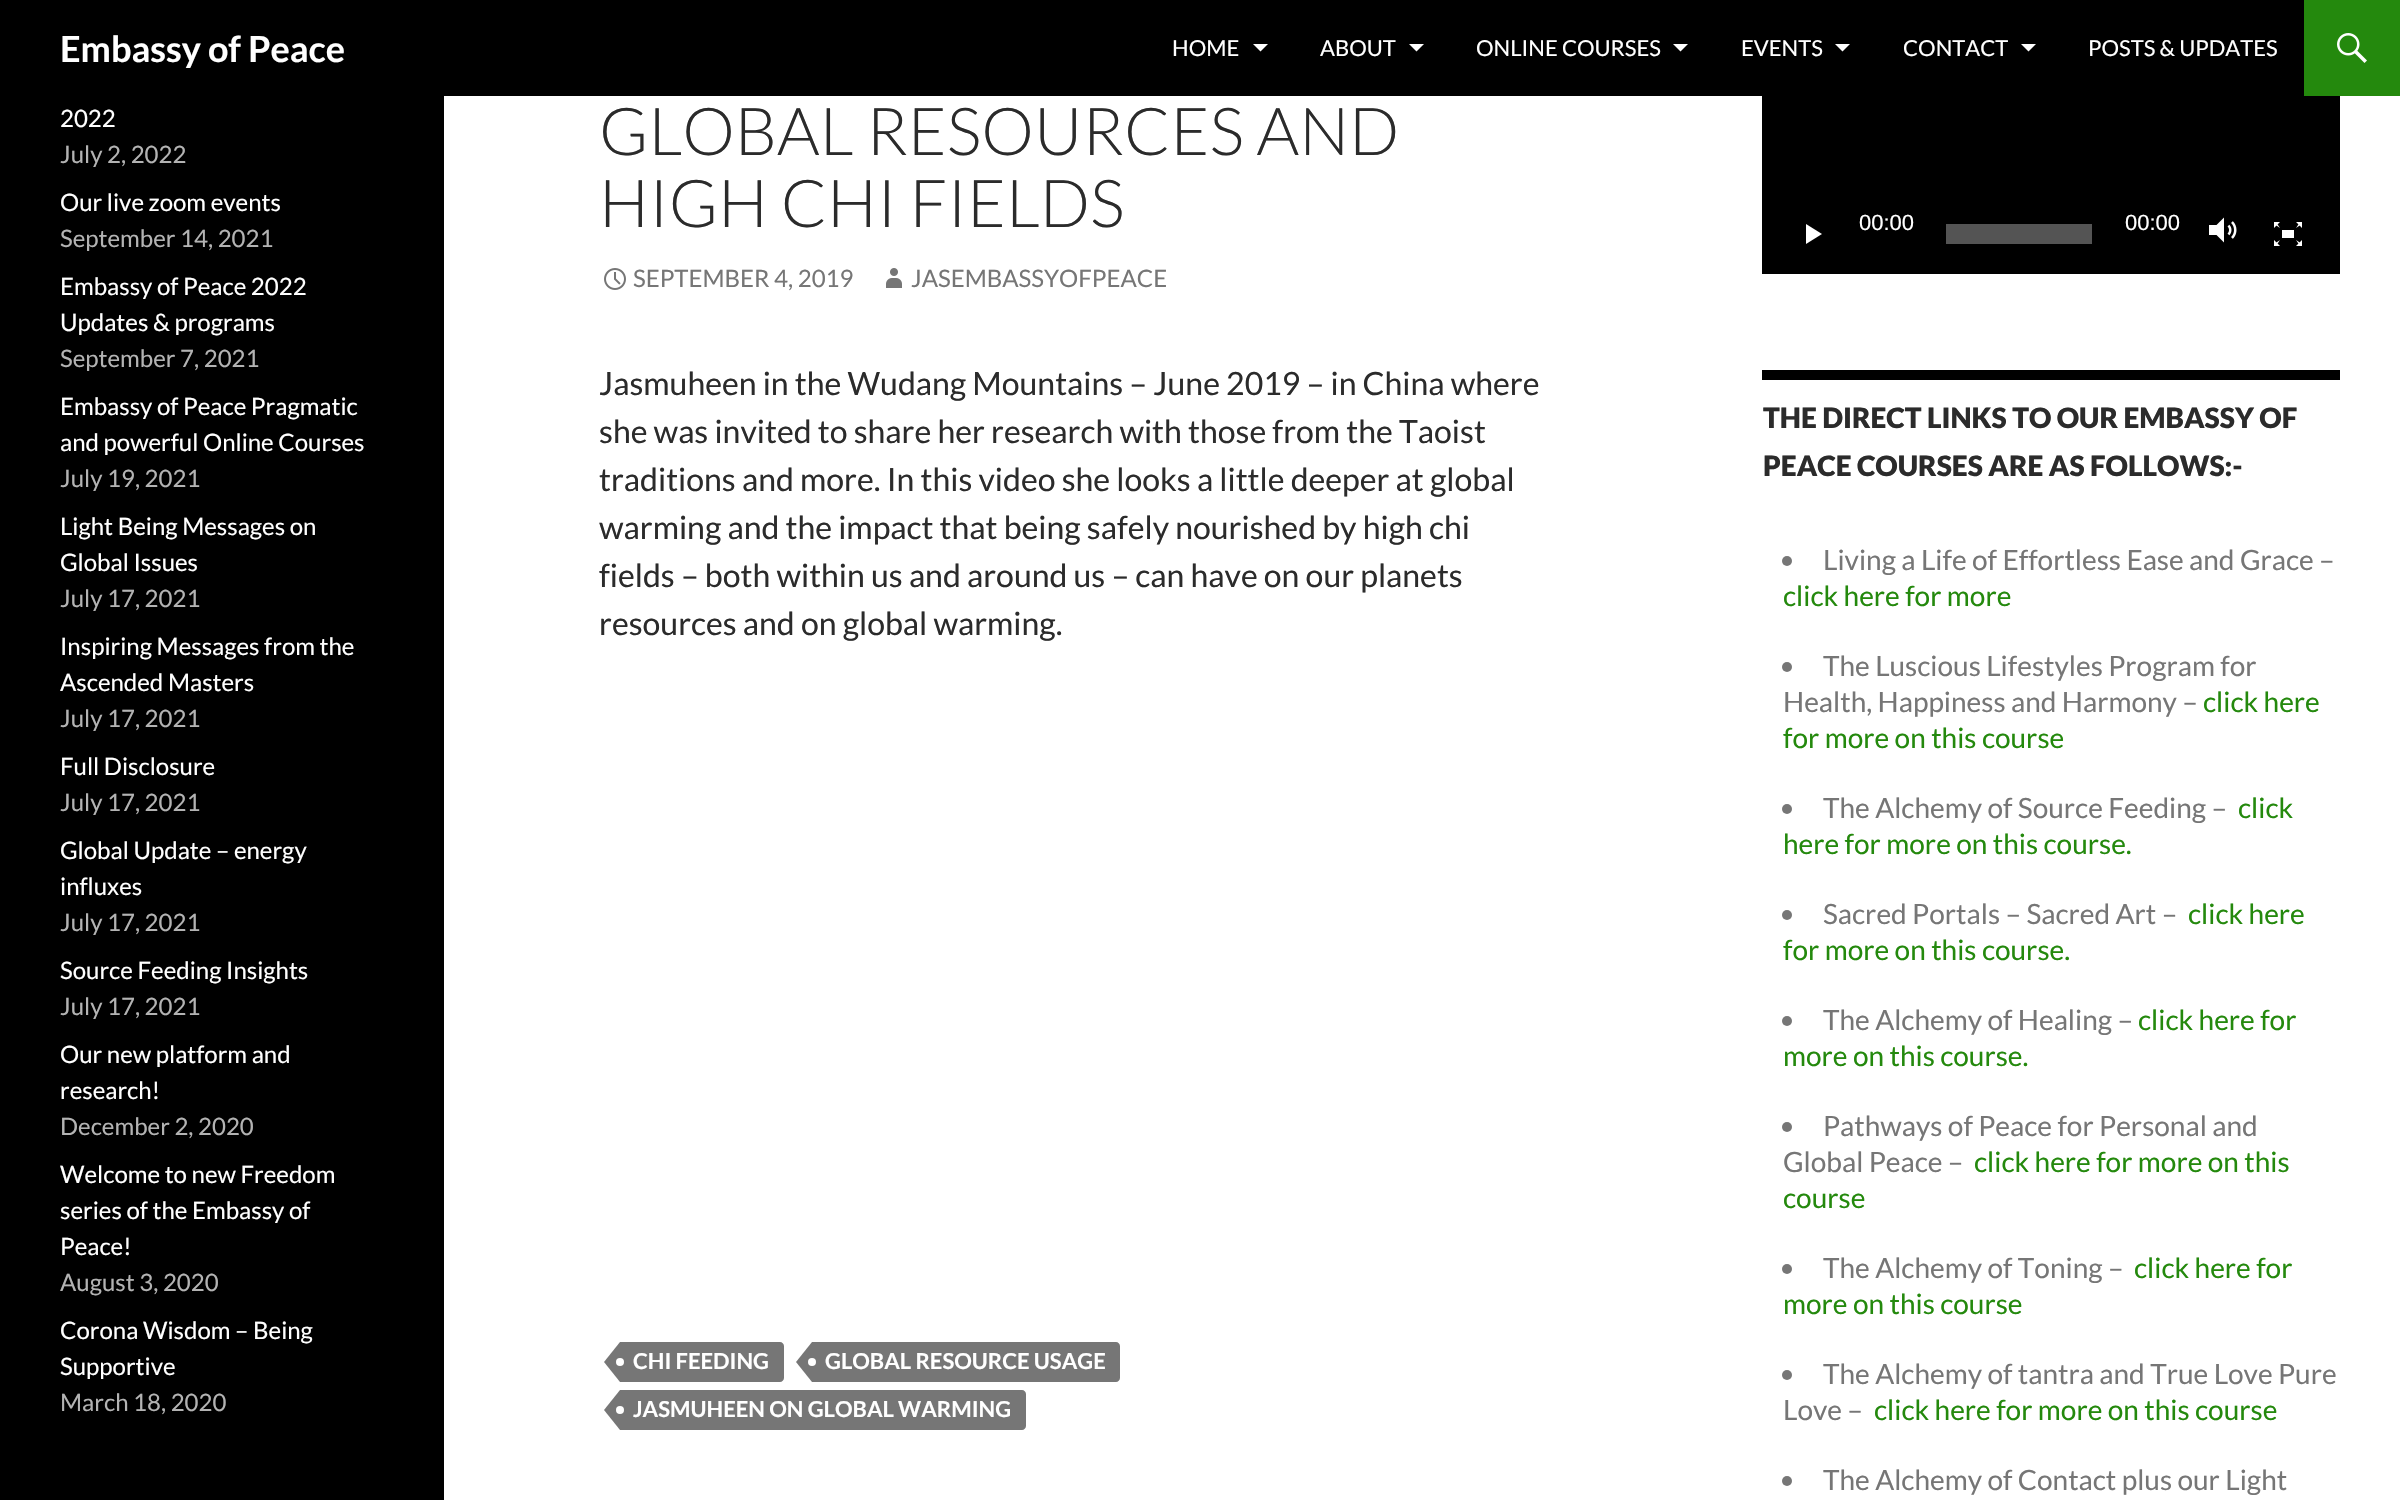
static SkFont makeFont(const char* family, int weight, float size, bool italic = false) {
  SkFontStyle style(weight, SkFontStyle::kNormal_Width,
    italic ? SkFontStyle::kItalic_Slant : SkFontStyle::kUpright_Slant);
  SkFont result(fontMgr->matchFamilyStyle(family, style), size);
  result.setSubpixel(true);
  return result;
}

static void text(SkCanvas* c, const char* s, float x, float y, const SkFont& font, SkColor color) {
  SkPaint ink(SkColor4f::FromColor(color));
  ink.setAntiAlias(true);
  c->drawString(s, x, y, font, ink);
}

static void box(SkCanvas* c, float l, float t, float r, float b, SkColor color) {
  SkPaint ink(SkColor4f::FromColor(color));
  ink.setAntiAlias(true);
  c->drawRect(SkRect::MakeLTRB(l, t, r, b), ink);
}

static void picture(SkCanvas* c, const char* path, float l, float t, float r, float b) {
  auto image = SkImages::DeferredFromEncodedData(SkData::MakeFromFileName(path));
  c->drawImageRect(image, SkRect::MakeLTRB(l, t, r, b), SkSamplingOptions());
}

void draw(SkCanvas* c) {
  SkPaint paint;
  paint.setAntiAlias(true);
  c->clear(0xffffffff);
  box(c, 0, 0, 2304, 96, 0xff000000);
  SkFont face1 = makeFont("Lato", 700, 36);
  text(c, "Embassy of Peace", 60, 62, face1, 0xffffffff);
  SkFont face2 = makeFont("Lato", 400, 22);
  text(c, "HOME", 1172, 56, face2, 0xffffffff);
  paint.setColor(0xffffffff);
  c->drawPath(SkPathBuilder().moveTo(1253, 44).lineTo(1260.5f, 51.5f).lineTo(1268, 44).close().detach(), paint);
  text(c, "ABOUT", 1320, 56, face2, 0xffffffff);
  c->drawPath(SkPathBuilder().moveTo(1409, 44).lineTo(1416.5f, 51.5f).lineTo(1424, 44).close().detach(), paint);
  text(c, "ONLINE COURSES", 1476, 56, face2, 0xffffffff);
  c->drawPath(SkPathBuilder().moveTo(1673, 44).lineTo(1680.5f, 51.5f).lineTo(1688, 44).close().detach(), paint);
  text(c, "EVENTS", 1741, 56, face2, 0xffffffff);
  c->drawPath(SkPathBuilder().moveTo(1835, 44).lineTo(1842.5f, 51.5f).lineTo(1850, 44).close().detach(), paint);
  text(c, "CONTACT", 1903, 56, face2, 0xffffffff);
  c->drawPath(SkPathBuilder().moveTo(2021, 44).lineTo(2028.5f, 51.5f).lineTo(2036, 44).close().detach(), paint);
  text(c, "POSTS & UPDATES", 2088, 56, face2, 0xffffffff);
  box(c, 2304, 0, 2400, 96, 0xff24890d);
  picture(c, "img_01.png", 2337, 33, 2367, 63);
  box(c, 0, 96, 444, 1500, 0xff000000);
  SkFont face3 = makeFont("Lato", 400, 24);
  text(c, "2022", 60, 127, face3, 0xffffffff);
  text(c, "July 2, 2022", 60, 163, face3, 0xffb3b3b3);
  text(c, "Our live zoom events", 60, 211, face3, 0xffffffff);
  text(c, "September 14, 2021", 60, 247, face3, 0xffb3b3b3);
  text(c, "Embassy of Peace 2022", 60, 295, face3, 0xffffffff);
  text(c, "Updates & programs", 60, 331, face3, 0xffffffff);
  text(c, "September 7, 2021", 60, 367, face3, 0xffb3b3b3);
  text(c, "Embassy of Peace Pragmatic", 60, 415, face3, 0xffffffff);
  text(c, "and powerful Online Courses", 60, 451, face3, 0xffffffff);
  text(c, "July 19, 2021", 60, 487, face3, 0xffb3b3b3);
  text(c, "Light Being Messages on", 60, 535, face3, 0xffffffff);
  text(c, "Global Issues", 60, 571, face3, 0xffffffff);
  text(c, "July 17, 2021", 60, 607, face3, 0xffb3b3b3);
  text(c, "Inspiring Messages from the", 60, 655, face3, 0xffffffff);
  text(c, "Ascended Masters", 60, 691, face3, 0xffffffff);
  text(c, "July 17, 2021", 60, 727, face3, 0xffb3b3b3);
  text(c, "Full Disclosure", 60, 775, face3, 0xffffffff);
  text(c, "July 17, 2021", 60, 811, face3, 0xffb3b3b3);
  text(c, "Global Update – energy", 60, 859, face3, 0xffffffff);
  text(c, "influxes", 60, 895, face3, 0xffffffff);
  text(c, "July 17, 2021", 60, 931, face3, 0xffb3b3b3);
  text(c, "Source Feeding Insights", 60, 979, face3, 0xffffffff);
  text(c, "July 17, 2021", 60, 1015, face3, 0xffb3b3b3);
  text(c, "Our new platform and", 60, 1063, face3, 0xffffffff);
  text(c, "research!", 60, 1099, face3, 0xffffffff);
  text(c, "December 2, 2020", 60, 1135, face3, 0xffb3b3b3);
  text(c, "Welcome to new Freedom", 60, 1183, face3, 0xffffffff);
  text(c, "series of the Embassy of", 60, 1219, face3, 0xffffffff);
  text(c, "Peace!", 60, 1255, face3, 0xffffffff);
  text(c, "August 3, 2020", 60, 1291, face3, 0xffb3b3b3);
  text(c, "Corona Wisdom – Being", 60, 1339, face3, 0xffffffff);
  text(c, "Supportive", 60, 1375, face3, 0xffffffff);
  text(c, "March 18, 2020", 60, 1411, face3, 0xffb3b3b3);
  SkFont face4 = makeFont("Lato", 300, 66);
  text(c, "GLOBAL RESOURCES AND", 599, 155, face4, 0xff2b2b2b);
  text(c, "HIGH CHI FIELDS", 599, 227, face4, 0xff2b2b2b);
  picture(c, "img_02.png", 604, 268, 626, 290);
  text(c, "SEPTEMBER 4, 2019", 633, 287, face3, 0xff767676);
  picture(c, "img_03.png", 886, 268, 902, 288);
  text(c, "JASEMBASSYOFPEACE", 911, 287, face3, 0xff767676);
  SkFont face5 = makeFont("Lato", 400, 32);
  text(c, "Jasmuheen in the Wudang Mountains – June 2019 – in China where", 599, 395, face5, 0xff2b2b2b);
  text(c, "she was invited to share her research with those from the Taoist", 599, 443, face5, 0xff2b2b2b);
  text(c, "traditions and more. In this video she looks a little deeper at global", 599, 491, face5, 0xff2b2b2b);
  text(c, "warming and the impact that being safely nourished by high chi", 599, 539, face5, 0xff2b2b2b);
  text(c, "fields – both within us and around us – can have on our planets", 599, 587, face5, 0xff2b2b2b);
  text(c, "resources and on global warming.", 599, 635, face5, 0xff2b2b2b);
  paint.setColor(0xff767676);
  c->drawPath(SkPathBuilder().moveTo(620, 1342).lineTo(780, 1342).cubicTo(782, 1342, 784, 1344, 784, 1346).lineTo(784, 1378).cubicTo(784, 1380, 782, 1382, 780, 1382).lineTo(620, 1382).close().detach(), paint);
  c->drawPath(SkPathBuilder().moveTo(620, 1342).lineTo(620, 1382).lineTo(604, 1362).close().detach(), paint);
  SkFont face6 = makeFont("Lato", 700, 22);
  text(c, "CHI FEEDING", 633, 1369, face6, 0xffffffff);
  paint.setColor(0xffffffff);
  c->drawCircle(620, 1362, 4, paint);
  paint.setColor(0xff767676);
  c->drawPath(SkPathBuilder().moveTo(812, 1342).lineTo(1116, 1342).cubicTo(1118, 1342, 1120, 1344, 1120, 1346).lineTo(1120, 1378).cubicTo(1120, 1380, 1118, 1382, 1116, 1382).lineTo(812, 1382).close().detach(), paint);
  c->drawPath(SkPathBuilder().moveTo(812, 1342).lineTo(812, 1382).lineTo(796, 1362).close().detach(), paint);
  text(c, "GLOBAL RESOURCE USAGE", 825, 1369, face6, 0xffffffff);
  paint.setColor(0xffffffff);
  c->drawCircle(812, 1362, 4, paint);
  paint.setColor(0xff767676);
  c->drawPath(SkPathBuilder().moveTo(620, 1390).lineTo(1022, 1390).cubicTo(1024, 1390, 1026, 1392, 1026, 1394).lineTo(1026, 1426).cubicTo(1026, 1428, 1024, 1430, 1022, 1430).lineTo(620, 1430).close().detach(), paint);
  c->drawPath(SkPathBuilder().moveTo(620, 1390).lineTo(620, 1430).lineTo(604, 1410).close().detach(), paint);
  text(c, "JASMUHEEN ON GLOBAL WARMING", 633, 1417, face6, 0xffffffff);
  paint.setColor(0xffffffff);
  c->drawCircle(620, 1410, 4, paint);
  box(c, 1762, 96, 2340, 274, 0xff000000);
  c->drawPath(SkPathBuilder().moveTo(1806, 244).lineTo(1806, 224).lineTo(1822, 234).close().detach(), paint);
  SkFont face7 = makeFont("Liberation Sans", 400, 22);
  text(c, "00:00", 1859, 230, face7, 0xffffffff);
  box(c, 1946, 224, 2092, 244, 0xff545454);
  text(c, "00:00", 2125, 230, face7, 0xffffffff);
  picture(c, "img_04.png", 2209, 217, 2237, 243);
  picture(c, "img_05.png", 2274, 222, 2302, 246);
  box(c, 1762, 370, 2340, 380, 0xff000000);
  SkFont face8 = makeFont("Lato", 900, 28);
  text(c, "THE DIRECT LINKS TO OUR EMBASSY OF", 1763, 428, face8, 0xff2b2b2b);
  text(c, "PEACE COURSES ARE AS FOLLOWS:-", 1763, 476, face8, 0xff2b2b2b);
  paint.setColor(0xff767676);
  c->drawCircle(1787, 561, 5, paint);
  SkFont face9 = makeFont("Lato", 400, 28);
  text(c, "Living a Life of Effortless Ease and Grace –", 1823, 570, face9, 0xff767676);
  text(c, "click here for more", 1783, 606, face9, 0xff24890d);
  c->drawCircle(1787, 667, 5, paint);
  text(c, "The Luscious Lifestyles Program for", 1823, 676, face9, 0xff767676);
  text(c, "Health, Happiness and Harmony –", 1783, 712, face9, 0xff767676);
  text(c, "click here", 2203, 712, face9, 0xff24890d);
  text(c, "for more on this course", 1783, 748, face9, 0xff24890d);
  c->drawCircle(1787, 809, 5, paint);
  text(c, "The Alchemy of Source Feeding –", 1823, 818, face9, 0xff767676);
  text(c, "click", 2238, 818, face9, 0xff24890d);
  text(c, "here for more on this course.", 1783, 854, face9, 0xff24890d);
  c->drawCircle(1787, 915, 5, paint);
  text(c, "Sacred Portals – Sacred Art –", 1823, 924, face9, 0xff767676);
  text(c, "click here", 2188, 924, face9, 0xff24890d);
  text(c, "for more on this course.", 1783, 960, face9, 0xff24890d);
  c->drawCircle(1787, 1021, 5, paint);
  text(c, "The Alchemy of Healing –", 1823, 1030, face9, 0xff767676);
  text(c, "click here for", 2138, 1030, face9, 0xff24890d);
  text(c, "more on this course.", 1783, 1066, face9, 0xff24890d);
  c->drawCircle(1787, 1127, 5, paint);
  text(c, "Pathways of Peace for Personal and", 1823, 1136, face9, 0xff767676);
  text(c, "Global Peace –", 1783, 1172, face9, 0xff767676);
  text(c, "click here for more on this", 1974, 1172, face9, 0xff24890d);
  text(c, "course", 1783, 1208, face9, 0xff24890d);
  c->drawCircle(1787, 1269, 5, paint);
  text(c, "The Alchemy of Toning –", 1823, 1278, face9, 0xff767676);
  text(c, "click here for", 2134, 1278, face9, 0xff24890d);
  text(c, "more on this course", 1783, 1314, face9, 0xff24890d);
  c->drawCircle(1787, 1375, 5, paint);
  text(c, "The Alchemy of tantra and True Love Pure", 1823, 1384, face9, 0xff767676);
  text(c, "Love –", 1783, 1420, face9, 0xff767676);
  text(c, "click here for more on this course", 1874, 1420, face9, 0xff24890d);
  c->drawCircle(1787, 1481, 5, paint);
  text(c, "The Alchemy of Contact plus our Light", 1823, 1490, face9, 0xff767676);
}
